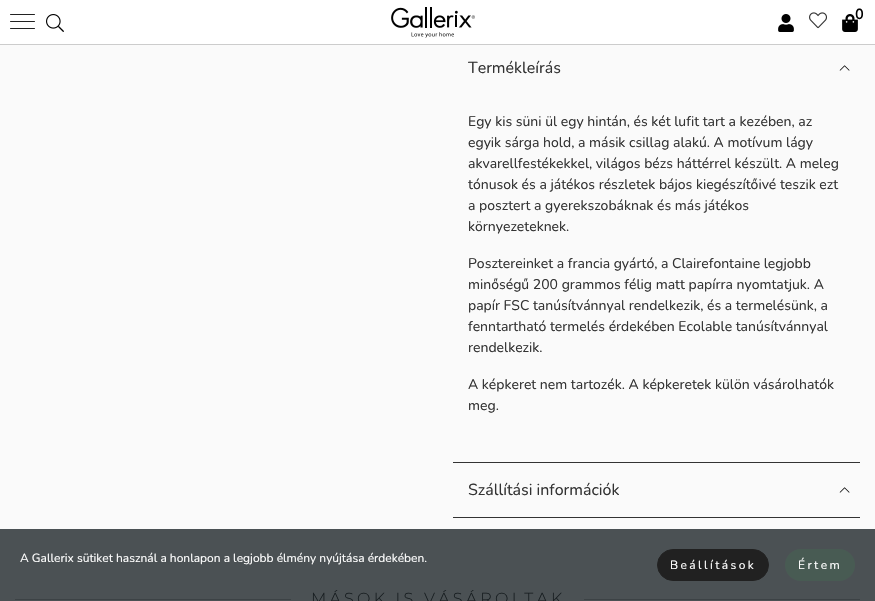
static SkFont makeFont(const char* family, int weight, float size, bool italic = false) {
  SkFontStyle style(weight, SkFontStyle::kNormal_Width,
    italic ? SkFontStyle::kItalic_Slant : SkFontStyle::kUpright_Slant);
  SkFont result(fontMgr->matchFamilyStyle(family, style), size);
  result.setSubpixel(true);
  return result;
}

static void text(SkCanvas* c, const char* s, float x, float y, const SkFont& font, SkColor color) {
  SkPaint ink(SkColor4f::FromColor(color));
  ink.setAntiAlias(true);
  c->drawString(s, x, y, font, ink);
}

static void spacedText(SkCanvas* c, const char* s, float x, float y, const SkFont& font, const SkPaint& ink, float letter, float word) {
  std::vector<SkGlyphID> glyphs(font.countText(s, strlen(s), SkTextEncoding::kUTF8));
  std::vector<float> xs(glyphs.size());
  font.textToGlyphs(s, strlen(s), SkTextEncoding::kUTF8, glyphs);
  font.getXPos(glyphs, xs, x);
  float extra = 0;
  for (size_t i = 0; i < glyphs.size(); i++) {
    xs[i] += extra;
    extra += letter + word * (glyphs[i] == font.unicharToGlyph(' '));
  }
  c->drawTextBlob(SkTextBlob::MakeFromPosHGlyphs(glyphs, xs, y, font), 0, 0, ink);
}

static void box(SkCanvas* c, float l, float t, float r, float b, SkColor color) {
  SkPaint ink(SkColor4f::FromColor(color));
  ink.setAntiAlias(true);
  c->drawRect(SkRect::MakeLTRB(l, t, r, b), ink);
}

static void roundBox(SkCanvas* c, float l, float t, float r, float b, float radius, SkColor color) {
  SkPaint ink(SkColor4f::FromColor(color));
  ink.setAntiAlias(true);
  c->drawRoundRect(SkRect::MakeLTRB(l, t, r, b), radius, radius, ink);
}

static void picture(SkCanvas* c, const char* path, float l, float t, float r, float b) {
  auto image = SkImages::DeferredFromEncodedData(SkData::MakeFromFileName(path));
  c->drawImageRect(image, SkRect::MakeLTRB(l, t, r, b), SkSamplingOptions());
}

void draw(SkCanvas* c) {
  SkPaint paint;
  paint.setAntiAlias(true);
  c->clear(0xfffafafa);
  box(c, 0, 529, 875, 601, 0xff4b5154);
  box(c, 0, 0, 875, 44, 0xffffffff);
  box(c, 0, 44, 875, 45, 0xffcccccc);
  roundBox(c, 10, 14, 35, 15, 0.5f, 0xff222222);
  roundBox(c, 10, 21, 35, 22, 0.5f, 0xff222222);
  roundBox(c, 10, 28, 35, 29, 0.5f, 0xff222222);
  picture(c, "img_01.png", 46, 14, 64, 32);
  picture(c, "img_02.png", 391, 7, 475, 38);
  picture(c, "img_03.png", 778, 14, 794, 32);
  picture(c, "img_04.png", 809, 12, 827, 29);
  picture(c, "img_05.png", 842, 14, 858, 32);
  SkFont face1 = makeFont("Nunito", 700, 14);
  text(c, "0", 855, 19, face1, 0xff000000);
  SkFont face2 = makeFont("Nunito", 400, 16);
  text(c, "Termékleírás", 468, 73, face2, 0xff333333);
  picture(c, "img_06.png", 839, 65, 850, 71);
  box(c, 453, 462, 860, 463, 0xff333333);
  SkFont face3 = makeFont("Nunito", 400, 14);
  text(c, "Egy kis süni ül egy hintán, és két lufit tart a kezében, az", 468, 126, face3, 0xff333333);
  text(c, "egyik sárga hold, a másik csillag alakú. A motívum lágy", 468, 147, face3, 0xff333333);
  text(c, "akvarellfestékekkel, világos bézs háttérrel készült. A meleg", 468, 168, face3, 0xff333333);
  text(c, "tónusok és a játékos részletek bájos kiegészítőivé teszik ezt", 468, 189, face3, 0xff333333);
  text(c, "a posztert a gyerekszobáknak és más játékos", 468, 210, face3, 0xff333333);
  text(c, "környezeteknek.", 468, 231, face3, 0xff333333);
  text(c, "Posztereinket a francia gyártó, a Clairefontaine legjobb", 468, 268, face3, 0xff333333);
  text(c, "minőségű 200 grammos félig matt papírra nyomtatjuk. A", 468, 289, face3, 0xff333333);
  text(c, "papír FSC tanúsítvánnyal rendelkezik, és a termelésünk, a", 468, 310, face3, 0xff333333);
  text(c, "fenntartható termelés érdekében Ecolable tanúsítvánnyal", 468, 331, face3, 0xff333333);
  text(c, "rendelkezik.", 468, 352, face3, 0xff333333);
  text(c, "A képkeret nem tartozék. A képkeretek külön vásárolhatók", 468, 389, face3, 0xff333333);
  text(c, "meg.", 468, 410, face3, 0xff333333);
  box(c, 453, 517, 860, 518, 0xff333333);
  text(c, "Szállítási információk", 468, 495, face2, 0xff333333);
  picture(c, "img_06.png", 839, 487, 850, 493);
  box(c, 15, 599, 860, 600, 0xff3c4245);
  box(c, 291, 599, 584, 600, 0xff4b5154);
  SkFont face4 = makeFont("Montserrat", 300, 16);
  paint.setColor(0xff181e21);
  spacedText(c, "MÁSOK IS VÁSÁROLTAK", 311, 604, face4, paint, 3.25f, 0);
  SkFont face5 = makeFont("Nunito", 400, 12);
  text(c, "A Gallerix sütiket használ a honlapon a legjobb élmény nyújtása érdekében.", 20, 562, face5, 0xffffffff);
  paint.setColor(0xff212121);
  c->drawRoundRect(SkRect::MakeLTRB(657.5f, 549.5f, 768.5f, 580.5f), 15.5f, 15.5f, paint);
  paint.setStyle(SkPaint::kStroke_Style);
  paint.setStrokeWidth(1);
  c->drawRoundRect(SkRect::MakeLTRB(657.5f, 549.5f, 768.5f, 580.5f), 15.5f, 15.5f, paint);
  paint.setStyle(SkPaint::kFill_Style);
  paint.setColor(0xffffffff);
  spacedText(c, "Beállítások", 670, 569, face5, paint, 2.4f, 0);
  roundBox(c, 785, 549, 855, 581, 16, 0xff485b53);
  spacedText(c, "Értem", 798, 569, face5, paint, 2.4f, 0);
}
